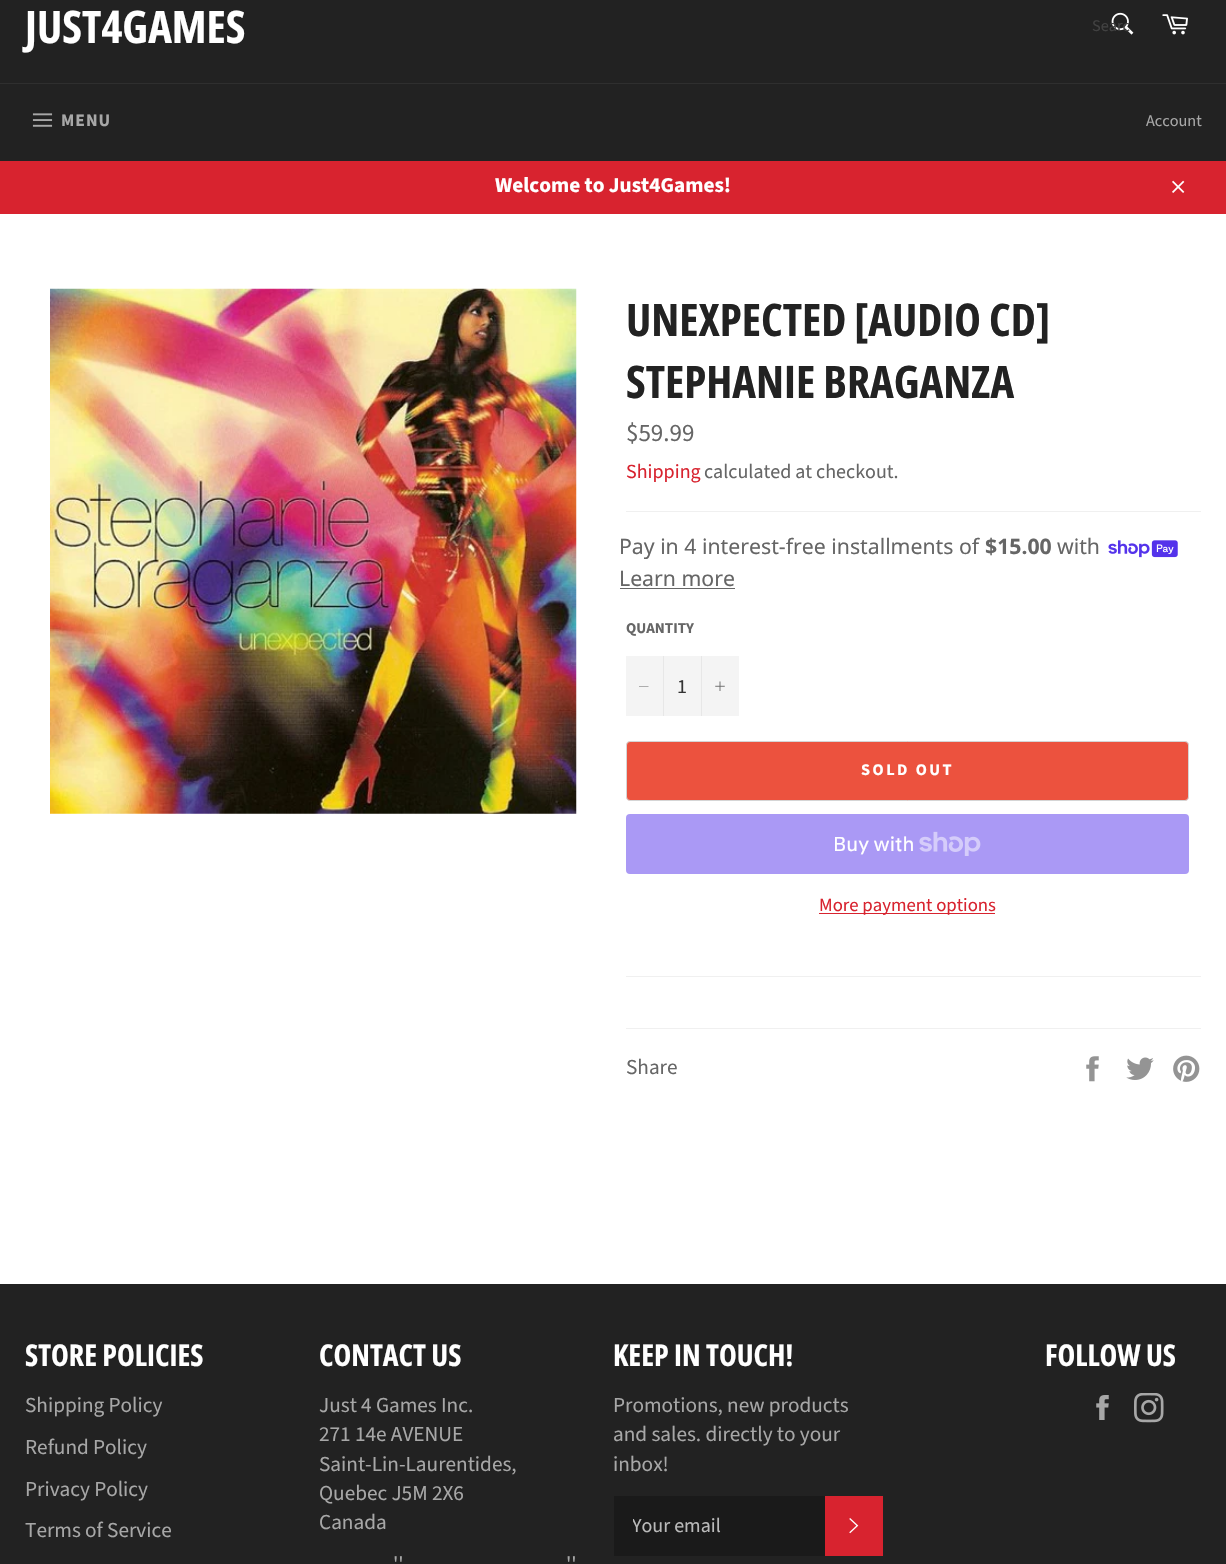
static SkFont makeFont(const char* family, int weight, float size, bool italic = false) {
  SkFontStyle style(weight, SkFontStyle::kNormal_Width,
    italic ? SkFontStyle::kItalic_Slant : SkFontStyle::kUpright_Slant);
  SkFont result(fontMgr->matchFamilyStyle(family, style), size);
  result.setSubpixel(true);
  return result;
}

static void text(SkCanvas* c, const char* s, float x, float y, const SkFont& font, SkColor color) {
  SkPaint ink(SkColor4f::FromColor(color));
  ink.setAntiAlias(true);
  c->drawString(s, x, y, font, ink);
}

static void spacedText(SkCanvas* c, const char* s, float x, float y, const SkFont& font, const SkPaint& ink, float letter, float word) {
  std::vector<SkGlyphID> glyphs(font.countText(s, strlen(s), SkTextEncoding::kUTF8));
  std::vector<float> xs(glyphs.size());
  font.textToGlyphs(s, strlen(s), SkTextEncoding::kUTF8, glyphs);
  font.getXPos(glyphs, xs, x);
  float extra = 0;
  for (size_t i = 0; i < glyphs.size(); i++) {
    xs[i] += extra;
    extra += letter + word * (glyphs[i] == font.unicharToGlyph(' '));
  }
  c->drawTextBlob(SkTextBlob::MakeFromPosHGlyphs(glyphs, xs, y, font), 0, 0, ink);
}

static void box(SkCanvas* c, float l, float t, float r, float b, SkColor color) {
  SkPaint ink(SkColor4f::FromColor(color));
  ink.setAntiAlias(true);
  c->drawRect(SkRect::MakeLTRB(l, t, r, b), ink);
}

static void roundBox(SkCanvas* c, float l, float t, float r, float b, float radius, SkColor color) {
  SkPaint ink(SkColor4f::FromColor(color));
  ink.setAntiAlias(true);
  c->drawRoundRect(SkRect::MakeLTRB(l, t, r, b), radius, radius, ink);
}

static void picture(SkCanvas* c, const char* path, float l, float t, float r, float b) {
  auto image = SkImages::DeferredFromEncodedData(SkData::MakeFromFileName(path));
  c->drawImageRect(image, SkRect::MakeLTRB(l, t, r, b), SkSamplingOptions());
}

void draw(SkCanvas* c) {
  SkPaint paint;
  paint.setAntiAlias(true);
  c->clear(0xff222222);
  SkFont face1 = makeFont("Open Sans Condensed", 700, 45);
  text(c, "JUST4GAMES", 25, 43, face1, 0xffffffff);
  picture(c, "img_01.png", 1111, 12, 1134, 35);
  SkFont face2 = makeFont("Source Sans Pro", 400, 16.25f);
  text(c, "Searc", 1092, 31, face2, 0xff414141);
  picture(c, "img_02.png", 1162, 14, 1188, 35);
  box(c, 0, 83, 1226, 84, 0xff2f2f2f);
  picture(c, "img_03.png", 32, 113, 53, 127);
  SkFont face3 = makeFont("Source Sans Pro", 700, 17.5f);
  paint.setColor(0xffa7a7a7);
  spacedText(c, "MENU", 61, 126, face3, paint, 1, 0);
  text(c, "Account", 1146, 126, face2, 0xffa7a7a7);
  box(c, 0, 161, 1226, 214, 0xffd8232f);
  SkFont face4 = makeFont("Source Sans Pro", 700, 21.25f);
  text(c, "Welcome to Just4Games!", 495, 192, face4, 0xffffffff);
  picture(c, "img_04.png", 1172, 180, 1185, 193);
  box(c, 0, 214, 1226, 1284, 0xffffffff);
  picture(c, "img_05.png", 50, 288, 577, 814);
  text(c, "UNEXPECTED [AUDIO CD]", 626, 336, face1, 0xff222222);
  text(c, "STEPHANIE BRAGANZA", 626, 398, face1, 0xff222222);
  SkFont face5 = makeFont("Source Sans Pro", 400, 25);
  text(c, "$59.99", 626, 441, face5, 0xff666666);
  SkFont face6 = makeFont("Source Sans Pro", 400, 20);
  text(c, "Shipping", 626, 478, face6, 0xffd8232f);
  text(c, "calculated at checkout.", 704, 478, face6, 0xff666666);
  box(c, 626, 511, 1201, 512, 0xfff0f0f0);
  SkFont face7 = makeFont("Noto Sans", 400, 21.25f);
  text(c, "Pay in 4 interest-free installments of", 619, 554, face7, 0xff666666);
  SkFont face8 = makeFont("Noto Sans", 700, 21.25f);
  text(c, "$15.00", 985, 554, face8, 0xff666666);
  text(c, "with", 1057, 554, face7, 0xff666666);
  picture(c, "img_06.png", 1108, 540, 1178, 558);
  text(c, "Learn more", 619, 586, face7, 0xff666666);
  box(c, 620, 588, 735, 589, 0xff666666);
  SkFont face9 = makeFont("Source Sans Pro", 700, 15);
  text(c, "QUANTITY", 626, 633, face9, 0xff666666);
  box(c, 626, 656, 739, 716, 0xfff4f4f4);
  box(c, 663, 656, 664, 716, 0xffe7e7e7);
  paint.setColor(0xff666666);
  c->drawPath(SkPathBuilder(SkPathFillType::kEvenOdd).moveTo(648.5f, 686).lineTo(648.5f, 686.5f).lineTo(639, 686.5f).lineTo(639, 686).close().detach(), paint);
  text(c, "1", 677, 693, face6, 0xff333333);
  box(c, 701, 656, 702, 716, 0xffe7e7e7);
  picture(c, "img_07.png", 715, 681, 725, 691);
  paint.setColor(0xffec523e);
  c->drawRoundRect(SkRect::MakeLTRB(626.5f, 741.5f, 1188.5f, 800.5f), 3.5f, 3.5f, paint);
  paint.setStyle(SkPaint::kStroke_Style);
  paint.setStrokeWidth(1);
  paint.setColor(0xffd5d5d5);
  c->drawRoundRect(SkRect::MakeLTRB(626.5f, 741.5f, 1188.5f, 800.5f), 3.5f, 3.5f, paint);
  SkFont face10 = makeFont("Source Sans Pro", 700, 16.25f);
  paint.setStyle(SkPaint::kFill_Style);
  paint.setColor(0xffffffff);
  spacedText(c, "SOLD OUT", 861, 775, face10, paint, 2.5f, 0);
  roundBox(c, 626, 814, 1189, 874, 4, 0xffaa99f5);
  SkFont face11 = makeFont("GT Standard", 400, 20);
  text(c, "Buy with", 833, 851, face11, 0xffffffff);
  picture(c, "img_08.png", 919, 831, 981, 856);
  box(c, 819, 913, 995, 914, 0xffd8232f);
  SkFont face12 = makeFont("Source Sans Pro", 400, 18.75f);
  text(c, "More payment options", 819, 911, face12, 0xffd8232f);
  box(c, 626, 976, 1201, 977, 0xfff0f0f0);
  box(c, 626, 1028, 1201, 1029, 0xfff0f0f0);
  SkFont face13 = makeFont("Source Sans Pro", 400, 21.25f);
  text(c, "Share", 626, 1074, face13, 0xff666666);
  picture(c, "img_09.png", 1086, 1056, 1099, 1082);
  picture(c, "img_10.png", 1126, 1057, 1154, 1080);
  picture(c, "img_11.png", 1173, 1055, 1200, 1082);
  SkFont face14 = makeFont("Open Sans Condensed", 700, 30);
  text(c, "STORE POLICIES", 25, 1366, face14, 0xffffffff);
  text(c, "Shipping Policy", 25, 1412, face13, 0xffa7a7a7);
  text(c, "Refund Policy", 25, 1454, face13, 0xffa7a7a7);
  text(c, "Privacy Policy", 25, 1496, face13, 0xffa7a7a7);
  text(c, "Terms of Service", 25, 1537, face13, 0xffa7a7a7);
  text(c, "CONTACT US", 319, 1366, face14, 0xffffffff);
  text(c, "Just 4 Games Inc.", 319, 1412, face13, 0xffa7a7a7);
  text(c, "271 14e AVENUE", 319, 1441, face13, 0xffa7a7a7);
  text(c, "Saint-Lin-Laurentides,", 319, 1471, face13, 0xffa7a7a7);
  text(c, "Quebec J5M 2X6", 319, 1500, face13, 0xffa7a7a7);
  text(c, "Canada", 319, 1529, face13, 0xffa7a7a7);
  text(c, "''", 393, 1571, face13, 0xffa7a7a7);
  text(c, "''", 566, 1571, face13, 0xffa7a7a7);
  text(c, "KEEP IN TOUCH!", 613, 1366, face14, 0xffffffff);
  text(c, "Promotions, new products", 613, 1412, face13, 0xffa7a7a7);
  text(c, "and sales. directly to your", 613, 1441, face13, 0xffa7a7a7);
  text(c, "inbox!", 613, 1471, face13, 0xffa7a7a7);
  box(c, 614, 1496, 825, 1556, 0xff1a1a1a);
  c->save();
  c->clipRect(SkRect::MakeLTRB(633, 1513, 806, 1540));
  text(c, "Your email", 632, 1532, face6, 0xffbababa);
  c->restore();
  box(c, 825, 1496, 883, 1556, 0xffd8232f);
  picture(c, "img_12.png", 849, 1518, 859, 1534);
  text(c, "FOLLOW US", 1045, 1366, face14, 0xffffffff);
  picture(c, "img_13.png", 1096, 1395, 1109, 1420);
  picture(c, "img_14.png", 1134, 1393, 1164, 1423);
}
